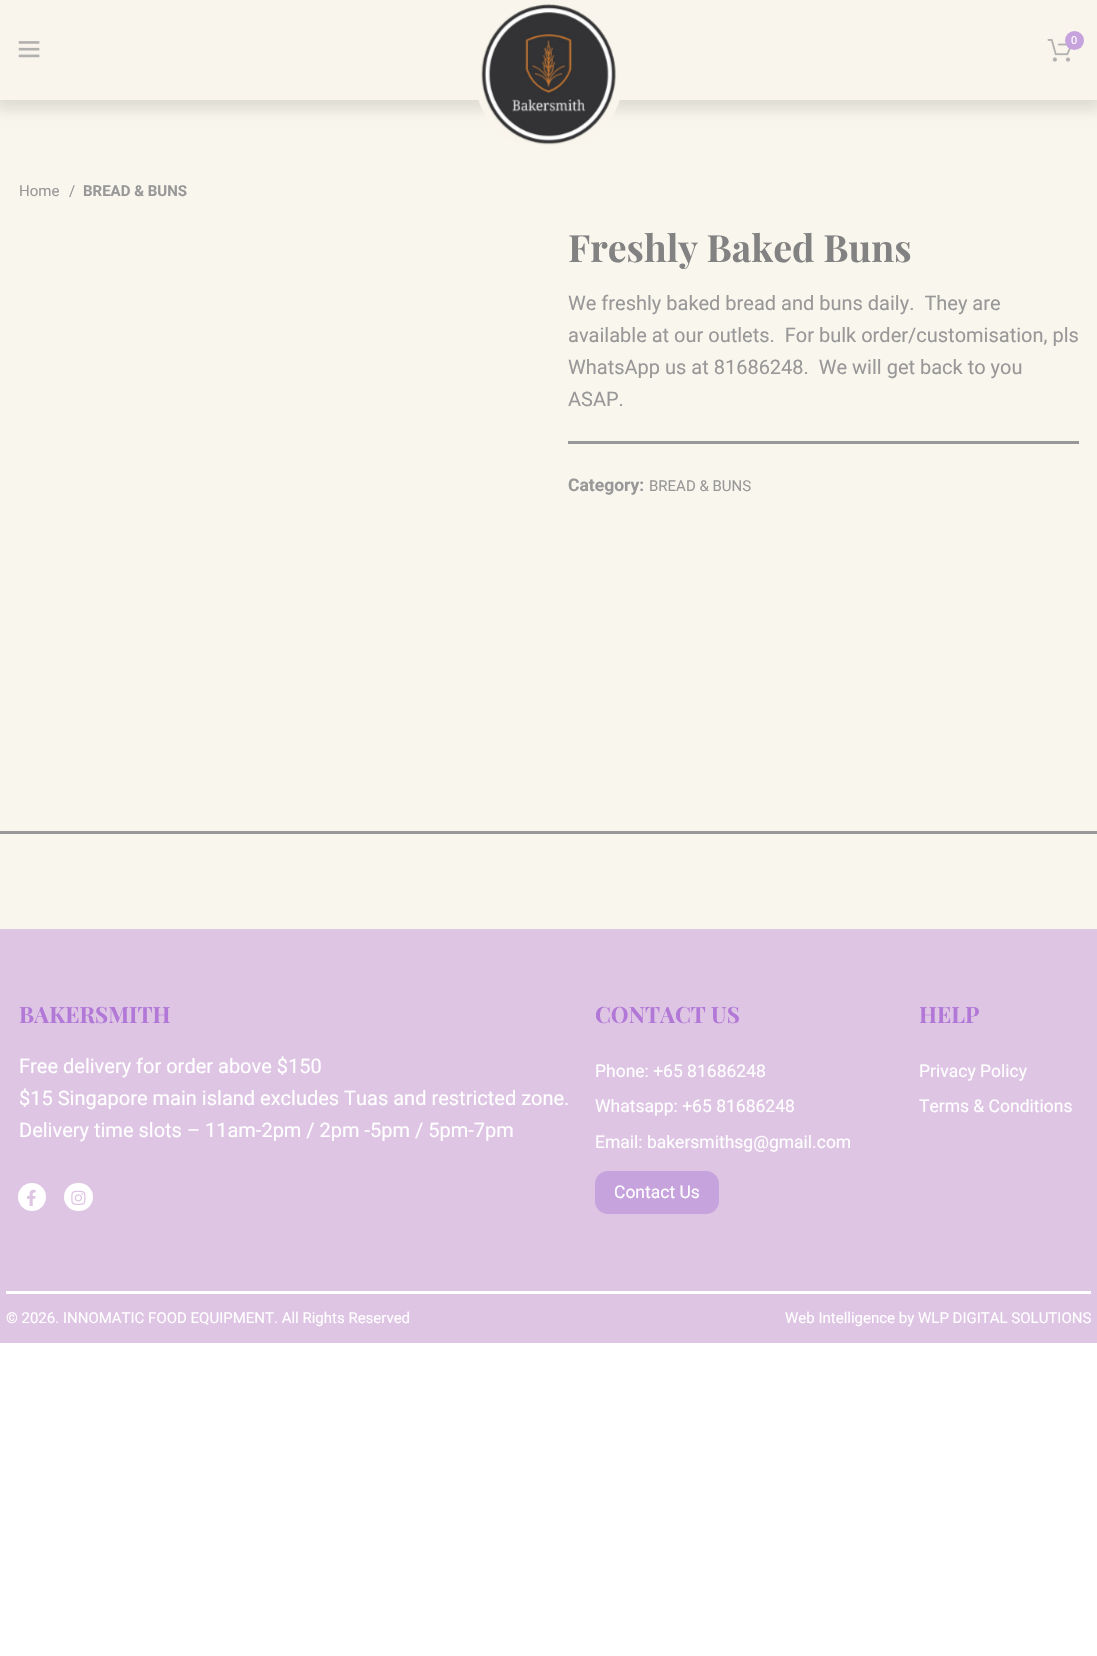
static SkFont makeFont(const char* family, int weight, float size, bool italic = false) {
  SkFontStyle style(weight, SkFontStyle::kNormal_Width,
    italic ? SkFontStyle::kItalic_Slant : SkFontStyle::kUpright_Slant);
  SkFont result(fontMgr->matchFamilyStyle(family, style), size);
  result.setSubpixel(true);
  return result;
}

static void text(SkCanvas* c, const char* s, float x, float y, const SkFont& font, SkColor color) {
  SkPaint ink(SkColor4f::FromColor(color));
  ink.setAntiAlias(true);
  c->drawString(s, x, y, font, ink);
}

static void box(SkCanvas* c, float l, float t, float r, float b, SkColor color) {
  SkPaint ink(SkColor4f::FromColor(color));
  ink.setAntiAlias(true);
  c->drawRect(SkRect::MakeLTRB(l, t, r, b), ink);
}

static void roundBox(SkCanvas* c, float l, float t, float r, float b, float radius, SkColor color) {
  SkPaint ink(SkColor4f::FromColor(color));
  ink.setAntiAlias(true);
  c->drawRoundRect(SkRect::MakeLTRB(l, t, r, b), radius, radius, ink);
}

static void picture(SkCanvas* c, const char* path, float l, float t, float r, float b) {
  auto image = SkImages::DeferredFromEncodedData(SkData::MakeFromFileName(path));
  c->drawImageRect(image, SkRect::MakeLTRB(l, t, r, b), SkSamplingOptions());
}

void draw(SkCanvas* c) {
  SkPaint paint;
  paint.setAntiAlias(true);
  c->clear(0xffffffff);
  box(c, 0, 100, 1097, 929, 0xfff9f6ed);
  paint.setColor(0x1a000000);
  paint.setMaskFilter(SkMaskFilter::MakeBlur(kNormal_SkBlurStyle, 6));
  c->drawRect(SkRect::MakeLTRB(-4, 3, 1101, 110), paint);
  paint.setMaskFilter(nullptr);
  box(c, 0, 0, 1097, 100, 0xfff9f5ec);
  picture(c, "img_01.png", 478, 4, 620, 145);
  picture(c, "img_02.png", 1047, 39, 1071, 62);
  paint.setColor(0xffc7a3de);
  c->drawCircle(1074.5f, 40.5f, 9.5f, paint);
  SkFont face1 = makeFont("Roboto", 400, 11);
  text(c, "0", 1071, 44, face1, 0xffffffff);
  picture(c, "img_03.png", 18, 41, 40, 58);
  SkFont face2 = makeFont("Roboto", 400, 15);
  text(c, "Home", 19, 196, face2, 0xff989898);
  text(c, "/", 69, 196, face2, 0xff989898);
  SkFont face3 = makeFont("Roboto", 700, 15);
  text(c, "BREAD & BUNS", 83, 196, face3, 0xff989898);
  SkFont face4 = makeFont("Playfair Display", 700, 37.5f);
  text(c, "Freshly Baked Buns", 568, 262, face4, 0xff828282);
  SkFont face5 = makeFont("Roboto", 400, 20);
  text(c, "We freshly baked bread and buns daily.  They are", 568, 310, face5, 0xff989898);
  text(c, "available at our outlets.  For bulk order/customisation, pls", 568, 342, face5, 0xff989898);
  text(c, "WhatsApp us at 81686248.  We will get back to you", 568, 374, face5, 0xff989898);
  text(c, "ASAP.", 568, 406, face5, 0xff989898);
  box(c, 568, 441, 1079, 444, 0xff989898);
  SkFont face6 = makeFont("Roboto", 700, 17.5f);
  text(c, "Category:", 568, 491, face6, 0xff989898);
  text(c, "BREAD & BUNS", 649, 491, face2, 0xff989898);
  box(c, 0, 831, 1097, 834, 0xff989898);
  box(c, 0, 929, 1097, 1343, 0xffdec5e4);
  SkFont face7 = makeFont("Playfair Display", 700, 22.5f);
  text(c, "BAKERSMITH", 19, 1023, face7, 0xffb278d7);
  text(c, "Free delivery for order above $150", 19, 1073, face5, 0xffffffff);
  text(c, "$15 Singapore main island excludes Tuas and restricted zone.", 19, 1105, face5, 0xffffffff);
  text(c, "Delivery time slots – 11am-2pm / 2pm -5pm / 5pm-7pm", 19, 1137, face5, 0xffffffff);
  paint.setColor(0xffffffff);
  c->drawCircle(32, 1197, 14, paint);
  picture(c, "img_04.png", 27, 1189, 36, 1206);
  roundBox(c, 64, 1183, 93, 1211, 14, 0xffffffff);
  picture(c, "img_05.png", 71, 1190, 86, 1205);
  text(c, "CONTACT US", 595, 1023, face7, 0xffb278d7);
  SkFont face8 = makeFont("Roboto", 400, 17.5f);
  text(c, "Phone: +65 81686248", 595, 1077, face8, 0xffffffff);
  text(c, "Whatsapp: +65 81686248", 595, 1112, face8, 0xffffffff);
  text(c, "Email: bakersmithsg@gmail.com", 595, 1148, face8, 0xffffffff);
  roundBox(c, 595, 1171, 719, 1214, 13, 0xffc7a3de);
  text(c, "Contact Us", 614, 1198, face8, 0xffffffff);
  text(c, "HELP", 919, 1023, face7, 0xffb278d7);
  text(c, "Privacy Policy", 919, 1077, face8, 0xffffffff);
  text(c, "Terms & Conditions", 919, 1112, face8, 0xffffffff);
  box(c, 6, 1291, 1091, 1294, 0xffffffff);
  text(c, "© 2026. INNOMATIC FOOD EQUIPMENT. All Rights Reserved", 6, 1323, face2, 0xffffffff);
  text(c, "Web Intelligence by WLP DIGITAL SOLUTIONS", 785, 1323, face2, 0xffffffff);
}
